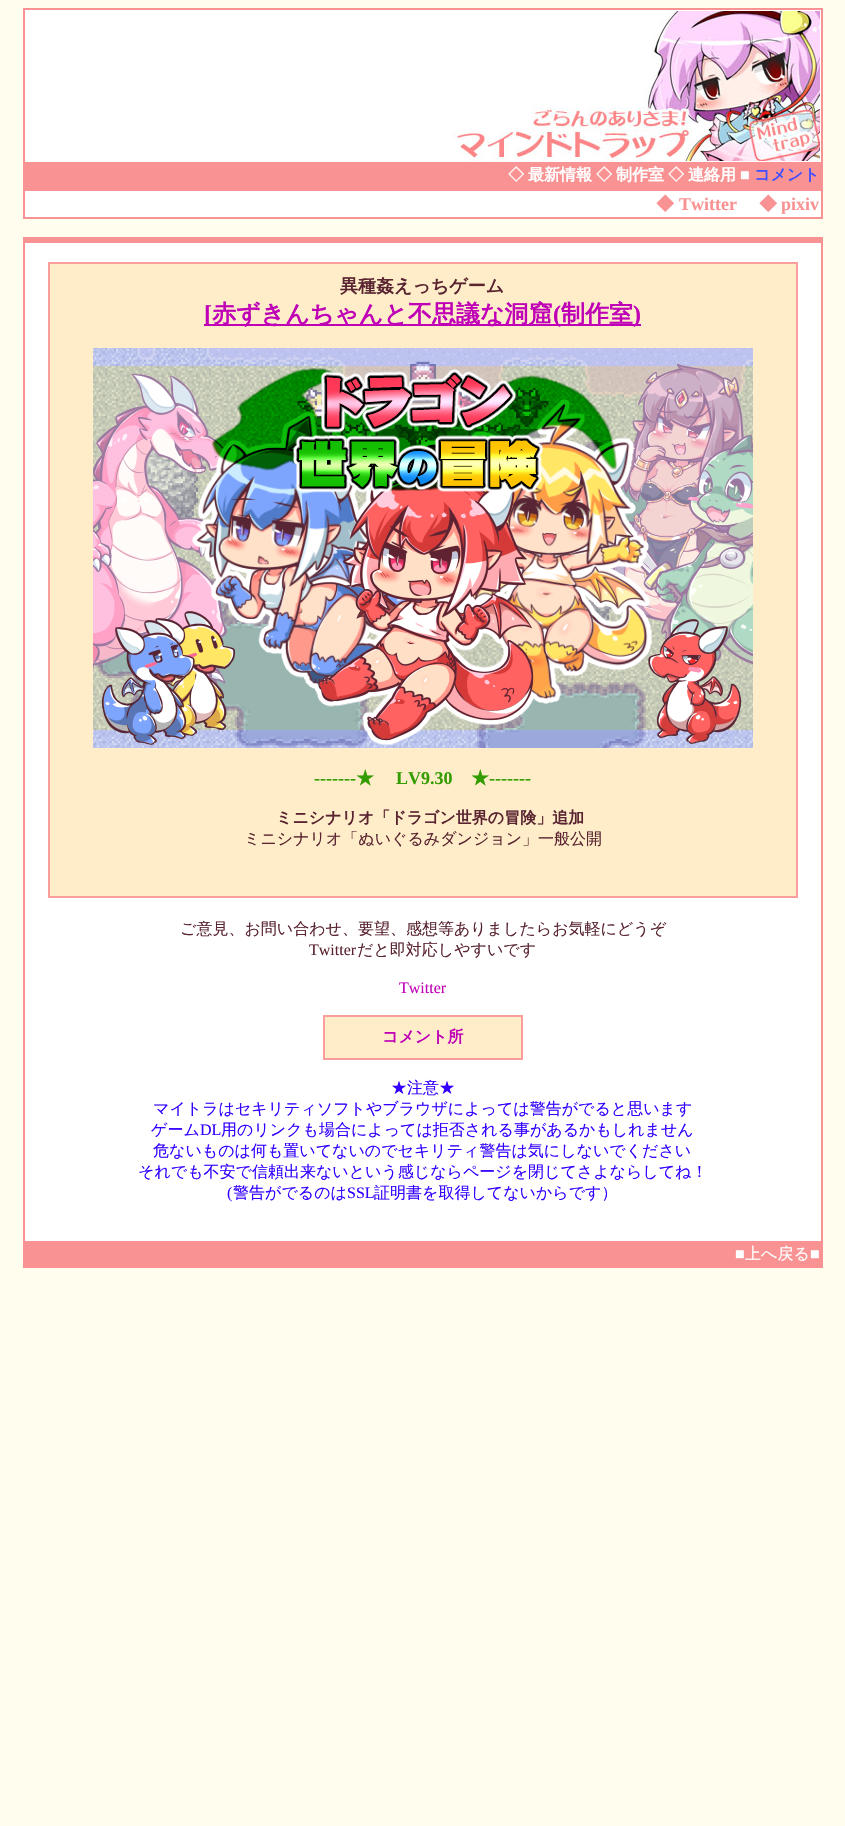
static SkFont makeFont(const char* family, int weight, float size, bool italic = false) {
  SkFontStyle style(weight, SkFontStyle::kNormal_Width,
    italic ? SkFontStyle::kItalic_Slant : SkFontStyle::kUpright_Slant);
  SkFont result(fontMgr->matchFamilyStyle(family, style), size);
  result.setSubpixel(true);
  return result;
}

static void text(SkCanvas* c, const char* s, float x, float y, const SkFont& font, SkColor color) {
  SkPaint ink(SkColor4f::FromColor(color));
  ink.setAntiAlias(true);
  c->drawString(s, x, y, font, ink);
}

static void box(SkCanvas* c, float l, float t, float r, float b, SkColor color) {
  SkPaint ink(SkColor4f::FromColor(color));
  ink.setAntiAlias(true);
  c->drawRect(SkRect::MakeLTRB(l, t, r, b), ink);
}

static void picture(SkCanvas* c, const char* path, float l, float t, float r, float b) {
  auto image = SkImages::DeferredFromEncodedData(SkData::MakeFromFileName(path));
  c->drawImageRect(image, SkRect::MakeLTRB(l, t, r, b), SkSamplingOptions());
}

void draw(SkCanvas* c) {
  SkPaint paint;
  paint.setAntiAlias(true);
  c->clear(0xfffffdee);
  box(c, 23, 8, 823, 219, 0xfff99393);
  box(c, 25, 10, 821, 162, 0xffffffff);
  picture(c, "img_01.png", 452, 11, 820, 161);
  SkFont face1 = makeFont("WenQuanYi Zen Hei", 700, 16);
  text(c, "◇", 508, 180, face1, 0xffffffff);
  text(c, "最新情報", 528, 180, face1, 0xffffffff);
  text(c, "◇", 596, 180, face1, 0xffffffff);
  text(c, "制作室", 616, 180, face1, 0xffffffff);
  text(c, "◇", 668, 180, face1, 0xffffffff);
  text(c, "連絡用", 688, 180, face1, 0xffffffff);
  SkFont face2 = makeFont("Liberation Serif", 700, 16);
  text(c, "■", 740, 180, face2, 0xffffffff);
  text(c, "コメント", 754, 180, face1, 0xff424eff);
  box(c, 25, 191, 821, 217, 0xffffffff);
  SkFont face3 = makeFont("WenQuanYi Zen Hei", 700, 18);
  text(c, "◆", 656, 210, face3, 0xfff99393);
  SkFont face4 = makeFont("Liberation Serif", 700, 18);
  text(c, "Twitter", 679, 210, face4, 0xfff99393);
  text(c, "◆", 759, 210, face3, 0xfff99393);
  text(c, "pixiv", 781, 210, face4, 0xfff99393);
  box(c, 23, 237, 823, 1268, 0xfff99393);
  box(c, 25, 243, 821, 1241, 0xffffffff);
  box(c, 48, 262, 798, 898, 0xfff99d9d);
  box(c, 50, 264, 796, 896, 0xffffedca);
  text(c, "異種姦えっちゲーム", 340, 292, face3, 0xff592430);
  box(c, 204, 324, 641, 326, 0xffbf00b6);
  SkFont face5 = makeFont("Liberation Serif", 700, 24);
  text(c, "[", 204, 322, face5, 0xffbf00b6);
  SkFont face6 = makeFont("WenQuanYi Zen Hei", 700, 24);
  text(c, "赤ずきんちゃんと不思議な洞窟", 212, 322, face6, 0xffbf00b6);
  text(c, "(", 553, 322, face5, 0xffbf00b6);
  text(c, "制作室", 561, 322, face6, 0xffbf00b6);
  text(c, ")", 633, 322, face5, 0xffbf00b6);
  picture(c, "img_02.png", 93, 348, 753, 748);
  text(c, "-------", 314, 784, face4, 0xff339c00);
  text(c, "★", 356, 784, face3, 0xff339c00);
  text(c, "LV9.30", 396, 784, face4, 0xff339c00);
  text(c, "★", 471, 784, face3, 0xff339c00);
  text(c, "-------", 489, 784, face4, 0xff339c00);
  text(c, "ミニシナリオ「ドラゴン世界の冒険」追加", 276, 823, face1, 0xff592430);
  SkFont face7 = makeFont("WenQuanYi Zen Hei", 500, 16);
  text(c, "ミニシナリオ「ぬいぐるみダンジョン」一般公開", 244, 844, face7, 0xff592430);
  text(c, "ご意見、お問い合わせ、要望、感想等ありましたらお気軽にどうぞ", 180, 934, face7, 0xff592430);
  SkFont face8 = makeFont("Liberation Serif", 400, 16);
  text(c, "Twitter", 309, 955, face8, 0xff592430);
  text(c, "だと即対応しやすいです", 357, 955, face7, 0xff592430);
  text(c, "Twitter", 399, 993, face8, 0xffbf00b6);
  box(c, 323, 1015, 523, 1060, 0xfff99d9d);
  box(c, 325, 1017, 521, 1058, 0xffffedca);
  text(c, "コメント所", 382, 1042, face1, 0xffbf00b6);
  text(c, "★注意★", 391, 1093, face7, 0xff3300ff);
  text(c, "マイトラはセキリティソフトやブラウザによっては警告がでると思います", 153, 1114, face7, 0xff3300ff);
  text(c, "ゲーム", 151, 1135, face7, 0xff3300ff);
  text(c, "DL", 200, 1135, face8, 0xff3300ff);
  text(c, "用のリンクも場合によっては拒否される事があるかもしれません", 221, 1135, face7, 0xff3300ff);
  text(c, "危ないものは何も置いてないのでセキリティ警告は気にしないでください", 153, 1156, face7, 0xff3300ff);
  text(c, "それでも不安で信頼出来ないという感じならページを閉じてさよならしてね！", 138, 1177, face7, 0xff3300ff);
  text(c, "(", 227, 1198, face8, 0xff3300ff);
  text(c, "警告がでるのは", 233, 1198, face7, 0xff3300ff);
  text(c, "SSL", 347, 1198, face8, 0xff3300ff);
  text(c, "証明書を取得してないからです）", 374, 1198, face7, 0xff3300ff);
  text(c, "■", 735, 1259, face8, 0xffffffff);
  text(c, "上へ戻る", 745, 1259, face7, 0xffffffff);
  text(c, "■", 810, 1259, face8, 0xffffffff);
}
